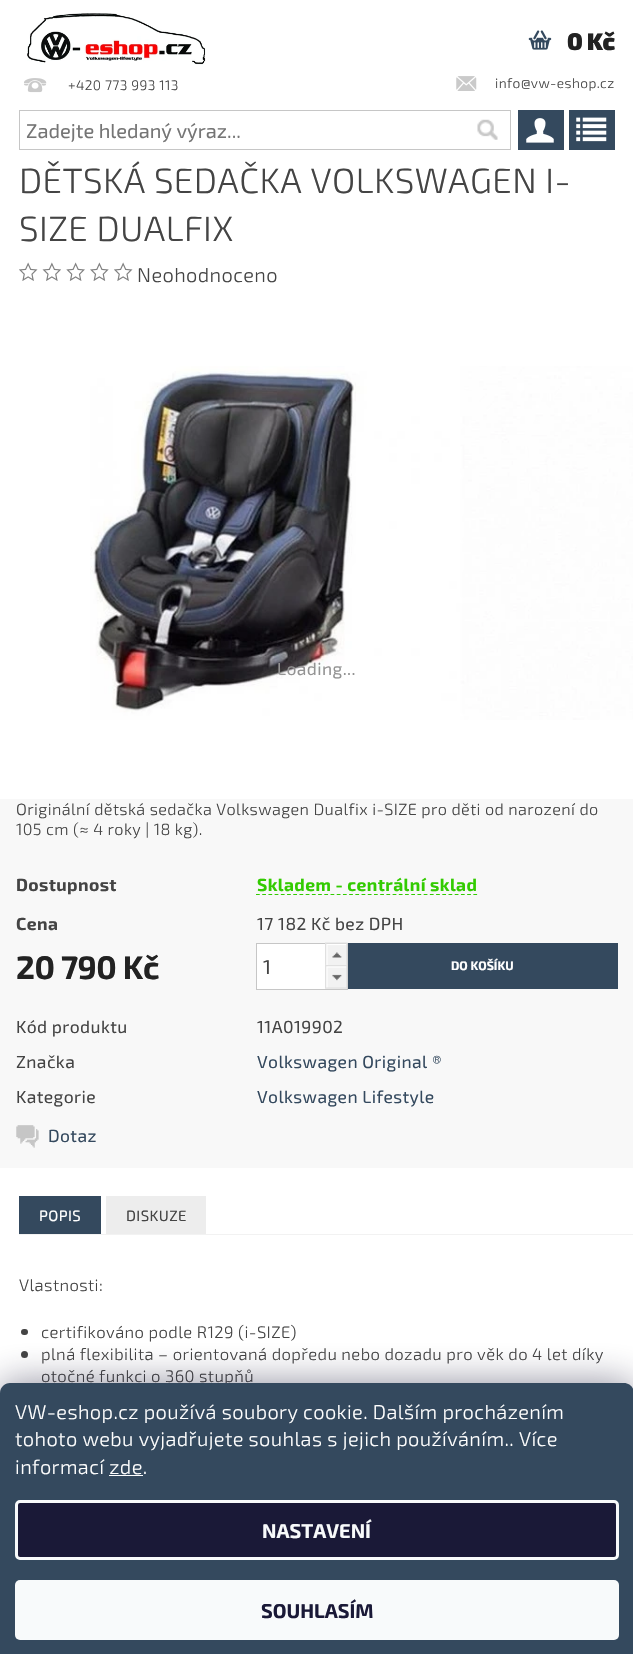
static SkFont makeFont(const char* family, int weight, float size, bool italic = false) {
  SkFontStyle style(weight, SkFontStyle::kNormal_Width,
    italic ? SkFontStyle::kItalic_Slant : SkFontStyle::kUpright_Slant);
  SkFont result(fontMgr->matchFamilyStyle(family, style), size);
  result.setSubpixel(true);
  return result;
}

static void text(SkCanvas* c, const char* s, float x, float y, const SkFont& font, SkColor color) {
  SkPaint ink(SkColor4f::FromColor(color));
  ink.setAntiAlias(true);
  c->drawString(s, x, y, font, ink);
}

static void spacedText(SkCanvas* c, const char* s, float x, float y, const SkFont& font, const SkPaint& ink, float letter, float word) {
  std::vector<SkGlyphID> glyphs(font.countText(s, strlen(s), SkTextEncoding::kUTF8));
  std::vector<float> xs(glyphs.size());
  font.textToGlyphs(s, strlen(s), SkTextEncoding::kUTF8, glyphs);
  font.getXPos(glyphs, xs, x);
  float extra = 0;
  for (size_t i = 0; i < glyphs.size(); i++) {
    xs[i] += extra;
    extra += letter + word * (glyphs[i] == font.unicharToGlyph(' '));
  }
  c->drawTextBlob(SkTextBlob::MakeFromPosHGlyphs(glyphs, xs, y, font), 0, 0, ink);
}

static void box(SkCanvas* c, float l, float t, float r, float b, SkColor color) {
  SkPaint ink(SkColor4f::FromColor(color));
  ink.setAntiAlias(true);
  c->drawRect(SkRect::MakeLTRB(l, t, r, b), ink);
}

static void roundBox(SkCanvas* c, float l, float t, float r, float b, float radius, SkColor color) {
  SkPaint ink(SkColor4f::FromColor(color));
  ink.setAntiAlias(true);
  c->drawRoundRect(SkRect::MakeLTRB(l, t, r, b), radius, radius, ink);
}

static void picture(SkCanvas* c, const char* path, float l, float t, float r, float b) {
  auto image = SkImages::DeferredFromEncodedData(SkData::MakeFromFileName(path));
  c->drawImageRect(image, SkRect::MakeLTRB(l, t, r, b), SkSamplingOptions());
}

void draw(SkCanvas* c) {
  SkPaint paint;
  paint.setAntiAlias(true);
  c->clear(0xffffffff);
  picture(c, "img_01.png", 27, 13, 206, 65);
  picture(c, "img_02.png", 528, 30, 552, 50);
  SkFont face1 = makeFont("Exo 2", 900, 24);
  paint.setColor(0xff222222);
  spacedText(c, "0 Kč", 567, 50, face1, paint, -0.5f, 0);
  box(c, 518, 110, 564, 150, 0xff34495e);
  picture(c, "img_03.png", 526, 118, 554, 143);
  picture(c, "img_04.png", 24, 78, 47, 93);
  SkFont face2 = makeFont("Exo 2", 300, 13.75f);
  paint.setColor(0xff444444);
  spacedText(c, "+420 773 993 113", 68, 90, face2, paint, 0.4f, 0);
  picture(c, "img_05.png", 456, 76, 477, 91);
  spacedText(c, "info@vw-eshop.cz", 495, 88, face2, paint, 0.4f, 0);
  paint.setStyle(SkPaint::kStroke_Style);
  paint.setStrokeWidth(1);
  paint.setColor(0xffc6c6c6);
  c->drawRect(SkRect::MakeLTRB(19.5f, 110.5f, 510.5f, 149.5f), paint);
  SkFont face3 = makeFont("Exo 2", 400, 20.1f);
  text(c, "Zadejte hledaný výraz...", 26, 138, face3, 0xff757575);
  picture(c, "img_06.png", 477, 119, 498, 140);
  box(c, 569, 110, 615, 150, 0xff34495e);
  picture(c, "img_07.png", 576, 117, 607, 142);
  SkFont face4 = makeFont("Exo 2", 300, 35);
  paint.setStyle(SkPaint::kFill_Style);
  paint.setColor(0xff444444);
  spacedText(c, "DĚTSKÁ SEDAČKA VOLKSWAGEN I-", 19, 193, face4, paint, 0.4f, 0);
  spacedText(c, "SIZE DUALFIX", 19, 241, face4, paint, 0.4f, 0);
  picture(c, "img_08.png", 19, 262, 38, 281);
  picture(c, "img_09.png", 42, 262, 61, 281);
  picture(c, "img_10.png", 66, 262, 85, 281);
  picture(c, "img_11.png", 90, 262, 109, 281);
  picture(c, "img_08.png", 114, 262, 133, 281);
  SkFont face5 = makeFont("Exo 2", 300, 20);
  spacedText(c, "Neohodnoceno", 137, 282, face5, paint, 0.4f, 0);
  picture(c, "img_12.png", 90, 366, 633, 720);
  SkFont face6 = makeFont("Exo 2", 400, 17.5f);
  paint.setColor(0xff939393);
  spacedText(c, "Loading...", 277, 675, face6, paint, 0.4f, 0);
  box(c, 0, 799, 633, 1168, 0xfff8f8f8);
  SkFont face7 = makeFont("Exo 2", 300, 16.25f);
  paint.setColor(0xff444444);
  spacedText(c, "Originální dětská sedačka Volkswagen Dualfix i-SIZE pro děti od narození do", 16, 815, face7, paint, 0.4f, 0);
  spacedText(c, "105 cm (≈ 4 roky | 18 kg).", 16, 835, face7, paint, 0.4f, 0);
  SkFont face8 = makeFont("Exo 2", 700, 17.5f);
  spacedText(c, "Dostupnost", 16, 891, face8, paint, 0.4f, 0);
  paint.setStyle(SkPaint::kStroke_Style);
  paint.setStrokeWidth(1.2f);
  paint.setColor(0xff32cb00);
  paint.setPathEffect(SkDashPathEffect::Make({{3.75f, 2.46f}}, 0));
  c->drawPath(SkPathBuilder().moveTo(256, 894.5f).lineTo(477.5f, 894.5f).detach(), paint);
  paint.setPathEffect(nullptr);
  paint.setStyle(SkPaint::kFill_Style);
  spacedText(c, "Skladem - centrální sklad", 257, 891, face8, paint, 0.4f, 0);
  paint.setColor(0xff444444);
  spacedText(c, "Cena", 16, 930, face8, paint, 0.4f, 0);
  spacedText(c, "17 182 Kč bez DPH", 257, 930, face6, paint, 0.4f, 0);
  SkFont face9 = makeFont("Exo 2", 700, 32.5f);
  paint.setColor(0xff222222);
  spacedText(c, "20 790 Kč", 16, 979, face9, paint, -0.5f, 0);
  paint.setColor(0xffffffff);
  c->drawRect(SkRect::MakeLTRB(256.5f, 943.5f, 347.5f, 989.5f), paint);
  paint.setStyle(SkPaint::kStroke_Style);
  paint.setStrokeWidth(1);
  paint.setColor(0xffc6c6c6);
  c->drawRect(SkRect::MakeLTRB(256.5f, 943.5f, 347.5f, 989.5f), paint);
  picture(c, "img_13.png", 325, 942, 348, 965);
  text(c, "1", 263, 974, face3, 0xff444444);
  picture(c, "img_14.png", 325, 965, 348, 989);
  box(c, 348, 943, 618, 989, 0xff34495e);
  SkFont face10 = makeFont("Exo 2", 700, 12.25f);
  text(c, "DO KOŠÍKU", 451, 970, face10, 0xffffffff);
  paint.setStyle(SkPaint::kFill_Style);
  paint.setColor(0xff444444);
  spacedText(c, "Kód produktu", 16, 1033, face6, paint, 0.4f, 0);
  spacedText(c, "11A019902", 257, 1033, face6, paint, 0.4f, 0);
  spacedText(c, "Značka", 16, 1068, face6, paint, 0.4f, 0);
  paint.setColor(0xff34495e);
  spacedText(c, "Volkswagen Original ®", 257, 1068, face6, paint, 0.4f, 0);
  paint.setColor(0xff444444);
  spacedText(c, "Kategorie", 16, 1103, face6, paint, 0.4f, 0);
  paint.setColor(0xff34495e);
  spacedText(c, "Volkswagen Lifestyle", 257, 1103, face6, paint, 0.4f, 0);
  picture(c, "img_15.png", 16, 1125, 39, 1148);
  spacedText(c, "Dotaz", 48, 1142, face6, paint, 0.4f, 0);
  box(c, 19, 1234, 633, 1235, 0xfff2f2f2);
  box(c, 19, 1196, 101, 1234, 0xff34495e);
  SkFont face11 = makeFont("Exo 2", 400, 15);
  paint.setColor(0xffffffff);
  spacedText(c, "POPIS", 39, 1221, face11, paint, 0.4f, 0);
  box(c, 106, 1196, 206, 1234, 0xffededed);
  paint.setColor(0xff444444);
  spacedText(c, "DISKUZE", 126, 1221, face11, paint, 0.4f, 0);
  SkFont face12 = makeFont("Exo 2", 300, 16.65f);
  spacedText(c, "Vlastnosti:", 19, 1291, face12, paint, 0.4f, 0);
  roundBox(c, 21, 1329, 28, 1335, 3, 0xff444444);
  spacedText(c, "certifikováno podle R129 (i-SIZE)", 41, 1338, face12, paint, 0.4f, 0);
  c->drawCircle(24.5f, 1354.5f, 3.5f, paint);
  spacedText(c, "plná flexibilita – orientovaná dopředu nebo dozadu pro věk do 4 let díky", 41, 1360, face12, paint, 0.4f, 0);
  spacedText(c, "otočné funkci o 360 stupňů", 41, 1382, face12, paint, 0.4f, 0);
  paint.setColor(0x801b1939);
  paint.setMaskFilter(SkMaskFilter::MakeBlur(kNormal_SkBlurStyle, 19));
  c->drawRoundRect(SkRect::MakeLTRB(0, 1383, 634, 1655), 10, 10, paint);
  paint.setMaskFilter(nullptr);
  paint.setColor(0xff34495e);
  c->drawPath(SkPathBuilder().moveTo(10, 1383).lineTo(624, 1383).cubicTo(629.5f, 1383, 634, 1387.5f, 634, 1393).lineTo(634, 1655).lineTo(0, 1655).lineTo(0, 1393).cubicTo(0, 1387.5f, 4.5f, 1383, 10, 1383).close().detach(), paint);
  paint.setColor(0xffffffff);
  spacedText(c, "VW-eshop.cz používá soubory cookie. Dalším procházením", 15, 1419, face5, paint, 0.4f, 0);
  spacedText(c, "tohoto webu vyjadřujete souhlas s jejich používáním.. Více", 15, 1446, face5, paint, 0.4f, 0);
  spacedText(c, "informací zde.", 15, 1474, face5, paint, 0.4f, 0);
  box(c, 109, 1475, 143, 1476, 0xffffffff);
  paint.setColor(0xff1a1937);
  c->drawRoundRect(SkRect::MakeLTRB(16.5f, 1501.5f, 617.5f, 1558.5f), 3.5f, 3.5f, paint);
  paint.setStyle(SkPaint::kStroke_Style);
  paint.setStrokeWidth(3);
  paint.setColor(0xfff8fafb);
  c->drawRoundRect(SkRect::MakeLTRB(16.5f, 1501.5f, 617.5f, 1558.5f), 3.5f, 3.5f, paint);
  SkFont face13 = makeFont("Exo 2", 700, 20);
  text(c, "NASTAVENÍ", 262, 1538, face13, 0xfff8fafb);
  roundBox(c, 15, 1580, 619, 1640, 5, 0xfff8fafb);
  text(c, "SOUHLASÍM", 261, 1618, face13, 0xff1a1937);
}
